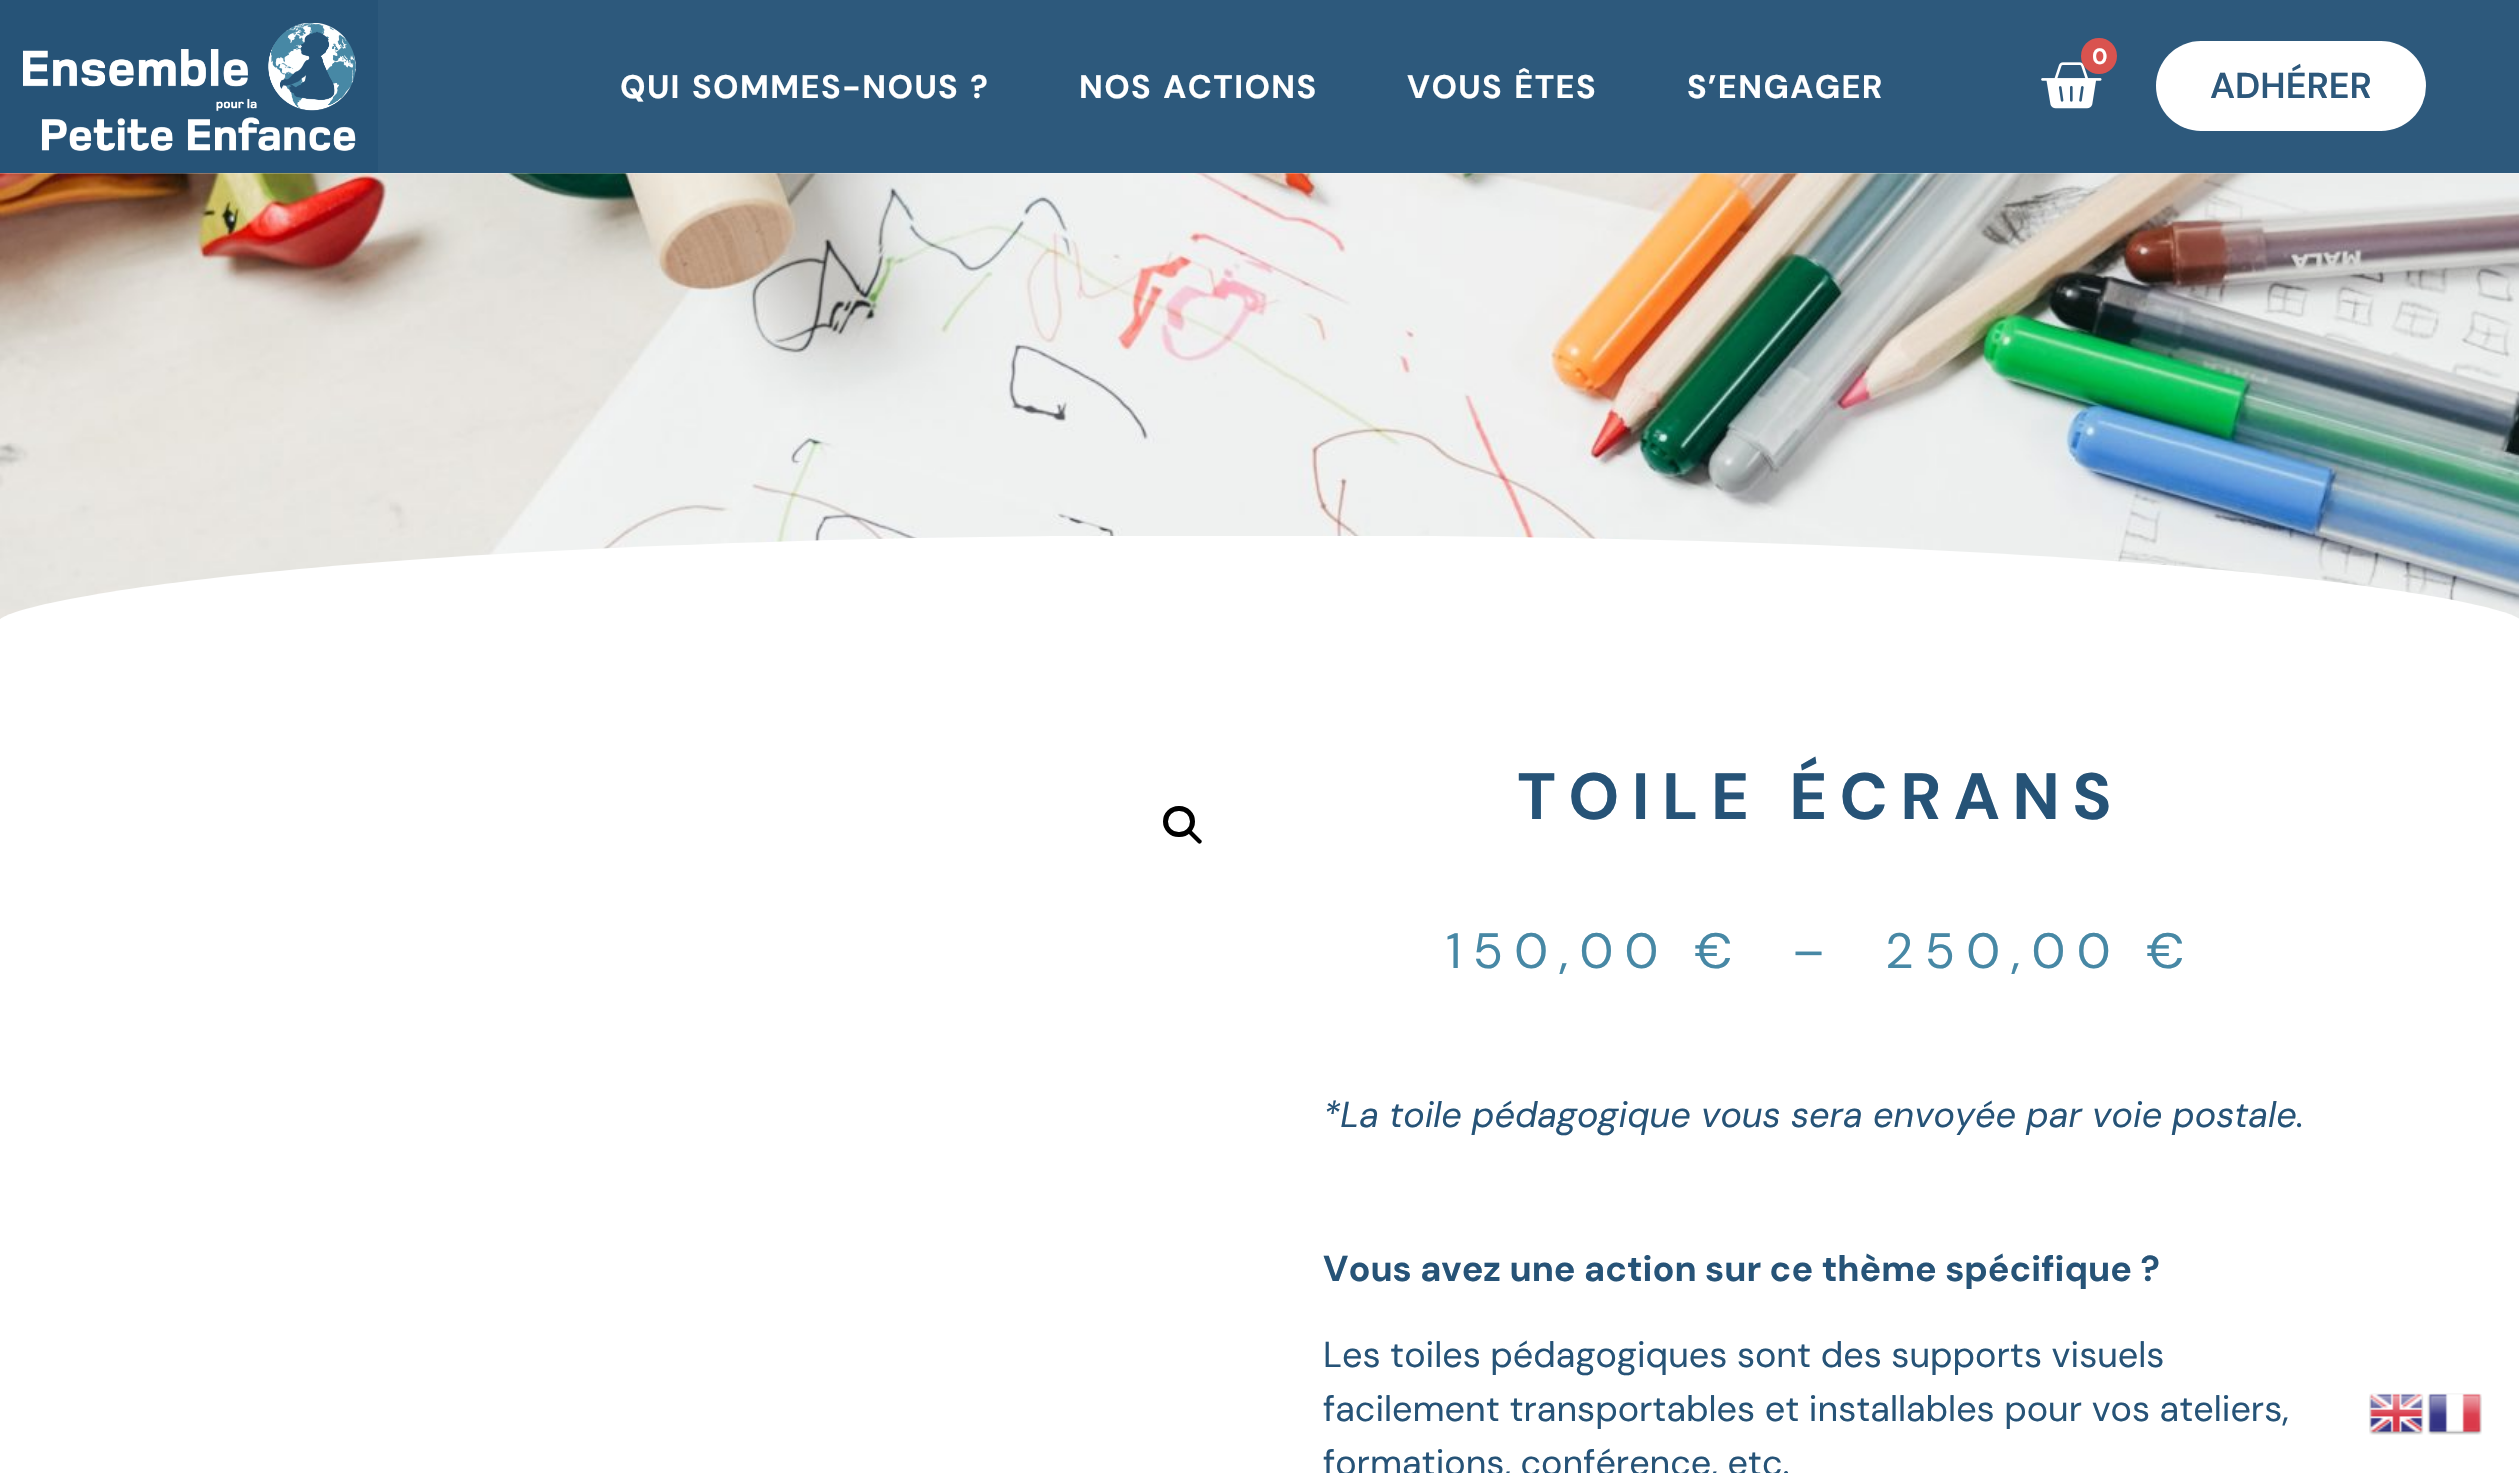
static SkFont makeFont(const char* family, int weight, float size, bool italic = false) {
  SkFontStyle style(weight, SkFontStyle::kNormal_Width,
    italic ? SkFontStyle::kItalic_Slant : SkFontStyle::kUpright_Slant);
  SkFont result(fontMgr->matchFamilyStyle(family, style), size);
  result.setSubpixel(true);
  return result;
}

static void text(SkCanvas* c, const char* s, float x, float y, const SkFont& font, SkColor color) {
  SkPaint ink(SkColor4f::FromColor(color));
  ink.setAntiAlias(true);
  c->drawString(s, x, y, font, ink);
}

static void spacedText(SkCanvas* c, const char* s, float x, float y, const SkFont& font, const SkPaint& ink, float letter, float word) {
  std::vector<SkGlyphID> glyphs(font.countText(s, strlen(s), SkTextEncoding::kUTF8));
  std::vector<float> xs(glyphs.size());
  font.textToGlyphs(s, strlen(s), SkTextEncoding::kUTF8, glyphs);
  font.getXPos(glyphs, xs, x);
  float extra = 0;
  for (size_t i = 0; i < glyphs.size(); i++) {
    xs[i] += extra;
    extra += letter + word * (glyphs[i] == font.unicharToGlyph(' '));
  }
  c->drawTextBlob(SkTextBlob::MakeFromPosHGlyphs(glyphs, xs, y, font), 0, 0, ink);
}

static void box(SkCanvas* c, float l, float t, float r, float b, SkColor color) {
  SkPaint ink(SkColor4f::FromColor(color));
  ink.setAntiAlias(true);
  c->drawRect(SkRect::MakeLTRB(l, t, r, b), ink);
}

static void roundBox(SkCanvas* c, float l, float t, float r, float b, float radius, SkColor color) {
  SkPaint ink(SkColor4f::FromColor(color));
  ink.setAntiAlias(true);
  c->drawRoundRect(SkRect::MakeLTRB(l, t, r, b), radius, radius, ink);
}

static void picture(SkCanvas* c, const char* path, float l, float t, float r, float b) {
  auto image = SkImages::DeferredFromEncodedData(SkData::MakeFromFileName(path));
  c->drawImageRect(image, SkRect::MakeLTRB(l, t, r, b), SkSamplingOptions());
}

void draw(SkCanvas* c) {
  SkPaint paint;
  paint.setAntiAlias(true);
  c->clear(0xffffffff);
  box(c, 0, 0, 378, 173, 0xff265377);
  picture(c, "img_01.png", 23, 23, 356, 151);
  box(c, 378, 0, 2519, 173, 0xff2d597c);
  picture(c, "img_02.png", 2041, 62, 2102, 109);
  paint.setColor(0xffd9534f);
  c->drawCircle(2099, 56, 18, paint);
  SkFont face1 = makeFont("DM Sans", 700, 22);
  text(c, "0", 2092, 64, face1, 0xffffffff);
  SkFont face2 = makeFont("DM Sans", 700, 32.6f);
  paint.setColor(0xffffffff);
  spacedText(c, "QUI SOMMES-NOUS ?", 620, 98, face2, paint, 1.4f, 2);
  spacedText(c, "NOS ACTIONS", 1079, 98, face2, paint, 1.4f, 2);
  spacedText(c, "VOUS ÊTES", 1407, 98, face2, paint, 1.4f, 2);
  spacedText(c, "S’ENGAGER", 1687, 98, face2, paint, 1.4f, 0);
  roundBox(c, 2156, 41, 2426, 131, 45, 0xffffffff);
  SkFont face3 = makeFont("DM Sans", 600, 36);
  text(c, "ADHÉRER", 2210, 98, face3, 0xff2d587b);
  picture(c, "img_03.png", 0, 173, 2519, 620);
  c->save();
  c->clipRect(SkRect::MakeLTRB(0, 536, 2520, 626));
  c->drawPath(SkPathBuilder().moveTo(-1, 621).lineTo(-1, 625).lineTo(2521, 625).lineTo(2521, 621).cubicTo(2519, 604, 2202, 536, 1260, 535).cubicTo(318, 534, -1, 604, -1, 621).close().detach(), paint);
  c->restore();
  paint.setStyle(SkPaint::kStroke_Style);
  paint.setStrokeWidth(5);
  paint.setColor(0xff000000);
  c->drawRoundRect(SkRect::MakeLTRB(1165.5f, 808.5f, 1192.5f, 834.5f), 13, 13, paint);
  paint.setStyle(SkPaint::kFill_Style);
  c->drawPath(SkPathBuilder().moveTo(1188.5f, 830.5f).cubicTo(1189.5f, 829.5f, 1190.5f, 829.5f, 1191.5f, 830.5f).lineTo(1201, 840).cubicTo(1202, 840.5f, 1202, 842, 1201, 843).cubicTo(1200, 844, 1199, 844, 1198, 843).lineTo(1188.5f, 833.5f).cubicTo(1187.5f, 832.5f, 1187.5f, 831, 1188.5f, 830.5f).close().detach(), paint);
  SkFont face4 = makeFont("DM Sans", 700, 65.25f);
  paint.setColor(0xff265377);
  spacedText(c, "TOILE ÉCRANS", 1517, 819, face4, paint, 12.4f, 0);
  SkFont face5 = makeFont("DM Sans", 400, 49.5f);
  paint.setColor(0xff4788a5);
  spacedText(c, "150,00 €", 1446, 968, face5, paint, 11.25f, 0);
  spacedText(c, "–", 1792, 968, face5, paint, 11.25f, 0);
  spacedText(c, "250,00 €", 1885, 968, face5, paint, 11.25f, 0);
  SkFont face6 = makeFont("DM Sans", 400, 36, true);
  text(c, "*La toile pédagogique vous sera envoyée par voie postale.", 1323, 1127, face6, 0xff265377);
  SkFont face7 = makeFont("DM Sans", 700, 36);
  text(c, "Vous avez une action sur ce thème spécifique ?", 1323, 1281, face7, 0xff265377);
  SkFont face8 = makeFont("DM Sans", 400, 36);
  text(c, "Les toiles pédagogiques sont des supports visuels", 1323, 1367, face8, 0xff265377);
  text(c, "facilement transportables et installables pour vos ateliers,", 1323, 1421, face8, 0xff265377);
  text(c, "formations, conférence, etc.", 1323, 1475, face8, 0xff265377);
  picture(c, "img_04.png", 2369, 1393, 2424, 1435);
  picture(c, "img_05.png", 2427, 1393, 2482, 1435);
}
